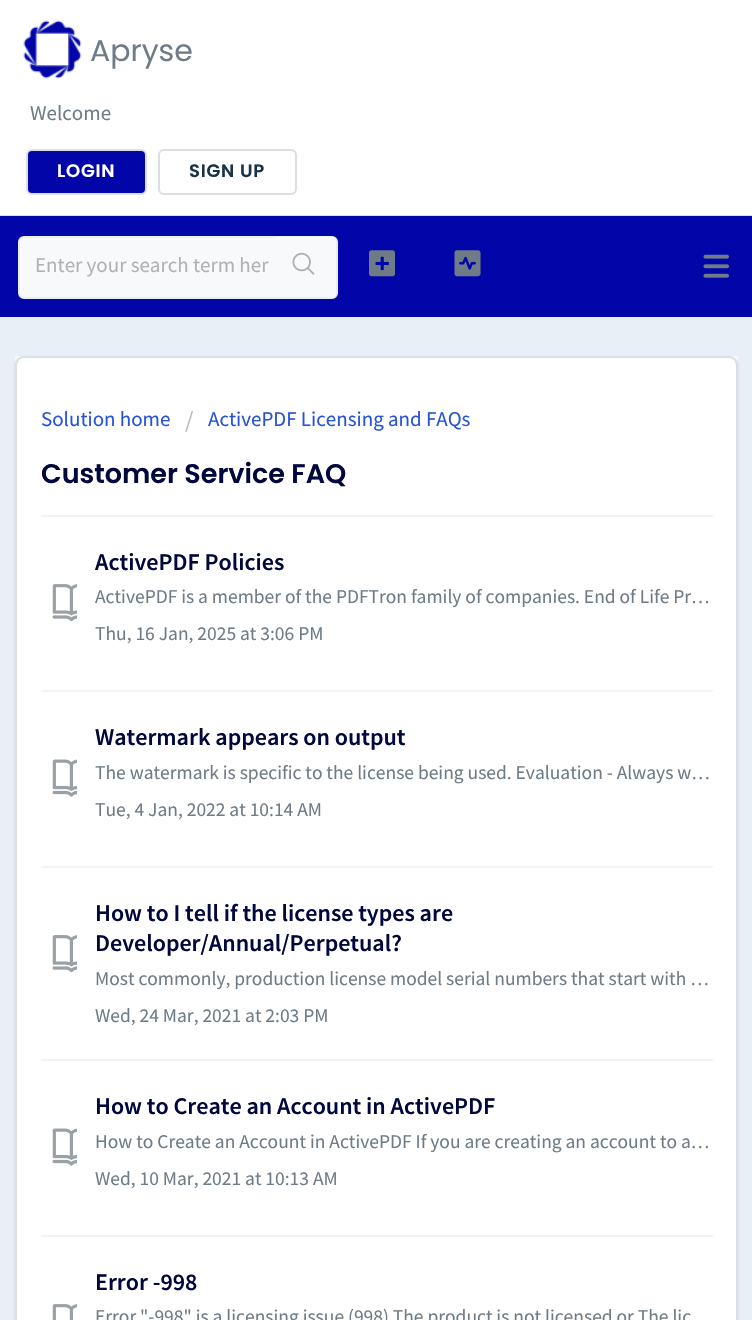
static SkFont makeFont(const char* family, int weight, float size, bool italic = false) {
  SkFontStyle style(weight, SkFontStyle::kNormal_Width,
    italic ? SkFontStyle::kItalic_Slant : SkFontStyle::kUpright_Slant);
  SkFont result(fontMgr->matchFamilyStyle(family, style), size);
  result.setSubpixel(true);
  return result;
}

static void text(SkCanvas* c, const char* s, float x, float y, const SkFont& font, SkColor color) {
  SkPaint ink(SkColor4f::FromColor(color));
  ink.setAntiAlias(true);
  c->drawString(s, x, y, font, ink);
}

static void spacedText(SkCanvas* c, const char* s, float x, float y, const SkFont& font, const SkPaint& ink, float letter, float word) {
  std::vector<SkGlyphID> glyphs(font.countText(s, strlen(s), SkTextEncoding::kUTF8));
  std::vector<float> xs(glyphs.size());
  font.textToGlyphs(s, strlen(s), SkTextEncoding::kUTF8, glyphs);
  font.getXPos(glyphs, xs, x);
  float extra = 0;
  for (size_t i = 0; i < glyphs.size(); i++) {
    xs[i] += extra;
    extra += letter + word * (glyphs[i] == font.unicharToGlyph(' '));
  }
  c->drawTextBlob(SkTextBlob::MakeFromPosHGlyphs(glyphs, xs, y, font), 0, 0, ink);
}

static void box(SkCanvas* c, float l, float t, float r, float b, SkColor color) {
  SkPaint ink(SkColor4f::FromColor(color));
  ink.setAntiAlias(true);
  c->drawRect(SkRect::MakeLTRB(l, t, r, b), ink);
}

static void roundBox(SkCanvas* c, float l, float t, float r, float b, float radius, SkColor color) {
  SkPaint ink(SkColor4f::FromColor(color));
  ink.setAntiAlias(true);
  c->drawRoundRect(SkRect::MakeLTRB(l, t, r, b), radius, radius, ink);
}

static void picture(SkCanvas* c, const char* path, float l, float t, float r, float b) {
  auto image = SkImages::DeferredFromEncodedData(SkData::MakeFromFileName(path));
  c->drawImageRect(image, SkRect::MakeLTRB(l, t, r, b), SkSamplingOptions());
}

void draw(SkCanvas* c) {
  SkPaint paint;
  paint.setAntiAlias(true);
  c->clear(0xffe8eff6);
  box(c, 0, 0, 752, 215, 0xffffffff);
  box(c, 0, 215, 752, 216, 0xffdadfe3);
  picture(c, "img_01.png", 23, 20, 82, 79);
  SkFont face1 = makeFont("Poppins", 400, 30);
  text(c, "Apryse", 90, 61, face1, 0xff6f7c87);
  SkFont face2 = makeFont("Source Sans Pro", 400, 21);
  text(c, "Welcome", 30, 120, face2, 0xff6f7c87);
  paint.setColor(0xff0206a8);
  c->drawRoundRect(SkRect::MakeLTRB(27, 150, 146, 194), 5, 5, paint);
  paint.setStyle(SkPaint::kStroke_Style);
  paint.setStrokeWidth(2);
  paint.setColor(0xffdadfe3);
  c->drawRoundRect(SkRect::MakeLTRB(27, 150, 146, 194), 5, 5, paint);
  SkFont face3 = makeFont("Poppins", 600, 18);
  paint.setStyle(SkPaint::kFill_Style);
  paint.setColor(0xffffffff);
  spacedText(c, "LOGIN", 57, 177, face3, paint, 0.75f, 0);
  paint.setStyle(SkPaint::kStroke_Style);
  paint.setColor(0xffdadfe3);
  c->drawRoundRect(SkRect::MakeLTRB(159, 150, 296, 194), 5, 5, paint);
  paint.setStyle(SkPaint::kFill_Style);
  paint.setColor(0xff183247);
  spacedText(c, "SIGN UP", 189, 177, face3, paint, 0.75f, 0);
  box(c, 0, 216, 752, 317, 0xff0206a8);
  picture(c, "img_02.png", 703, 254, 729, 278);
  paint.setColor(0xfff8f9fa);
  c->drawRoundRect(SkRect::MakeLTRB(19, 237, 337, 298), 5, 5, paint);
  paint.setStyle(SkPaint::kStroke_Style);
  paint.setColor(0xffebeef0);
  c->drawRoundRect(SkRect::MakeLTRB(19, 237, 337, 298), 5, 5, paint);
  text(c, "Enter your search term her", 35, 272, face2, 0xffb2b2b2);
  roundBox(c, 273, 237, 336, 297, 3, 0xfff8f9fa);
  picture(c, "img_03.png", 292, 252, 315, 275);
  picture(c, "img_04.png", 369, 250, 395, 277);
  picture(c, "img_05.png", 454, 250, 481, 277);
  box(c, 15, 356, 738, 365, 0xfff8f9fa);
  paint.setStyle(SkPaint::kFill_Style);
  paint.setColor(0x263f3f44);
  paint.setMaskFilter(SkMaskFilter::MakeBlur(kNormal_SkBlurStyle, 1.5f));
  c->drawRoundRect(SkRect::MakeLTRB(15, 357, 738, 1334), 9, 9, paint);
  paint.setMaskFilter(nullptr);
  paint.setColor(0xffffffff);
  c->drawRoundRect(SkRect::MakeLTRB(16, 357, 737, 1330), 8, 8, paint);
  paint.setStyle(SkPaint::kStroke_Style);
  paint.setColor(0xffdadfe3);
  c->drawRoundRect(SkRect::MakeLTRB(16, 357, 737, 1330), 8, 8, paint);
  text(c, "Solution home", 41, 426, face2, 0xff2753d7);
  SkFont face4 = makeFont("Source Sans Pro", 400, 24);
  text(c, "/", 185, 428, face4, 0xffbbbbbb);
  text(c, "ActivePDF Licensing and FAQs", 208, 426, face2, 0xff2753d7);
  SkFont face5 = makeFont("Poppins", 600, 27);
  text(c, "Customer Service FAQ", 41, 483, face5, 0xff00083d);
  box(c, 41, 515, 713, 517, 0xfff3f3f3);
  SkFont face6 = makeFont("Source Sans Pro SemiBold", 600, 24);
  text(c, "ActivePDF Policies", 95, 570, face6, 0xff00083d);
  picture(c, "img_06.png", 52, 584, 77, 622);
  SkFont face7 = makeFont("Source Sans Pro", 400, 19.5f);
  text(c, "ActivePDF is a member of the PDFTron family of companies. End of Life Pr…", 95, 603, face7, 0xff6f7c87);
  text(c, "Thu, 16 Jan, 2025 at 3:06 PM", 95, 640, face7, 0xff6f7c87);
  box(c, 41, 690, 713, 692, 0xfff3f3f3);
  text(c, "Watermark appears on output", 95, 745, face6, 0xff00083d);
  picture(c, "img_07.png", 52, 759, 77, 797);
  text(c, "The watermark is specific to the license being used. Evaluation - Always w…", 95, 779, face7, 0xff6f7c87);
  text(c, "Tue, 4 Jan, 2022 at 10:14 AM", 95, 816, face7, 0xff6f7c87);
  box(c, 41, 866, 713, 868, 0xfff3f3f3);
  picture(c, "img_06.png", 52, 935, 77, 973);
  text(c, "How to I tell if the license types are", 95, 921, face6, 0xff00083d);
  text(c, "Developer/Annual/Perpetual?", 95, 951, face6, 0xff00083d);
  text(c, "Most commonly, production license model serial numbers that start with …", 95, 985, face7, 0xff6f7c87);
  text(c, "Wed, 24 Mar, 2021 at 2:03 PM", 95, 1022, face7, 0xff6f7c87);
  box(c, 41, 1059, 713, 1061, 0xfff3f3f3);
  text(c, "How to Create an Account in ActivePDF", 95, 1114, face6, 0xff00083d);
  picture(c, "img_07.png", 52, 1128, 77, 1166);
  text(c, "How to Create an Account in ActivePDF If you are creating an account to a…", 95, 1148, face7, 0xff6f7c87);
  text(c, "Wed, 10 Mar, 2021 at 10:13 AM", 95, 1185, face7, 0xff6f7c87);
  box(c, 41, 1235, 713, 1237, 0xfff3f3f3);
  text(c, "Error -998", 95, 1290, face6, 0xff00083d);
  picture(c, "img_08.png", 52, 1304, 77, 1320);
  text(c, "Error \"-998\" is a licensing issue (998) The product is not licensed or The lic", 95, 1323, face7, 0xff6f7c87);
}
